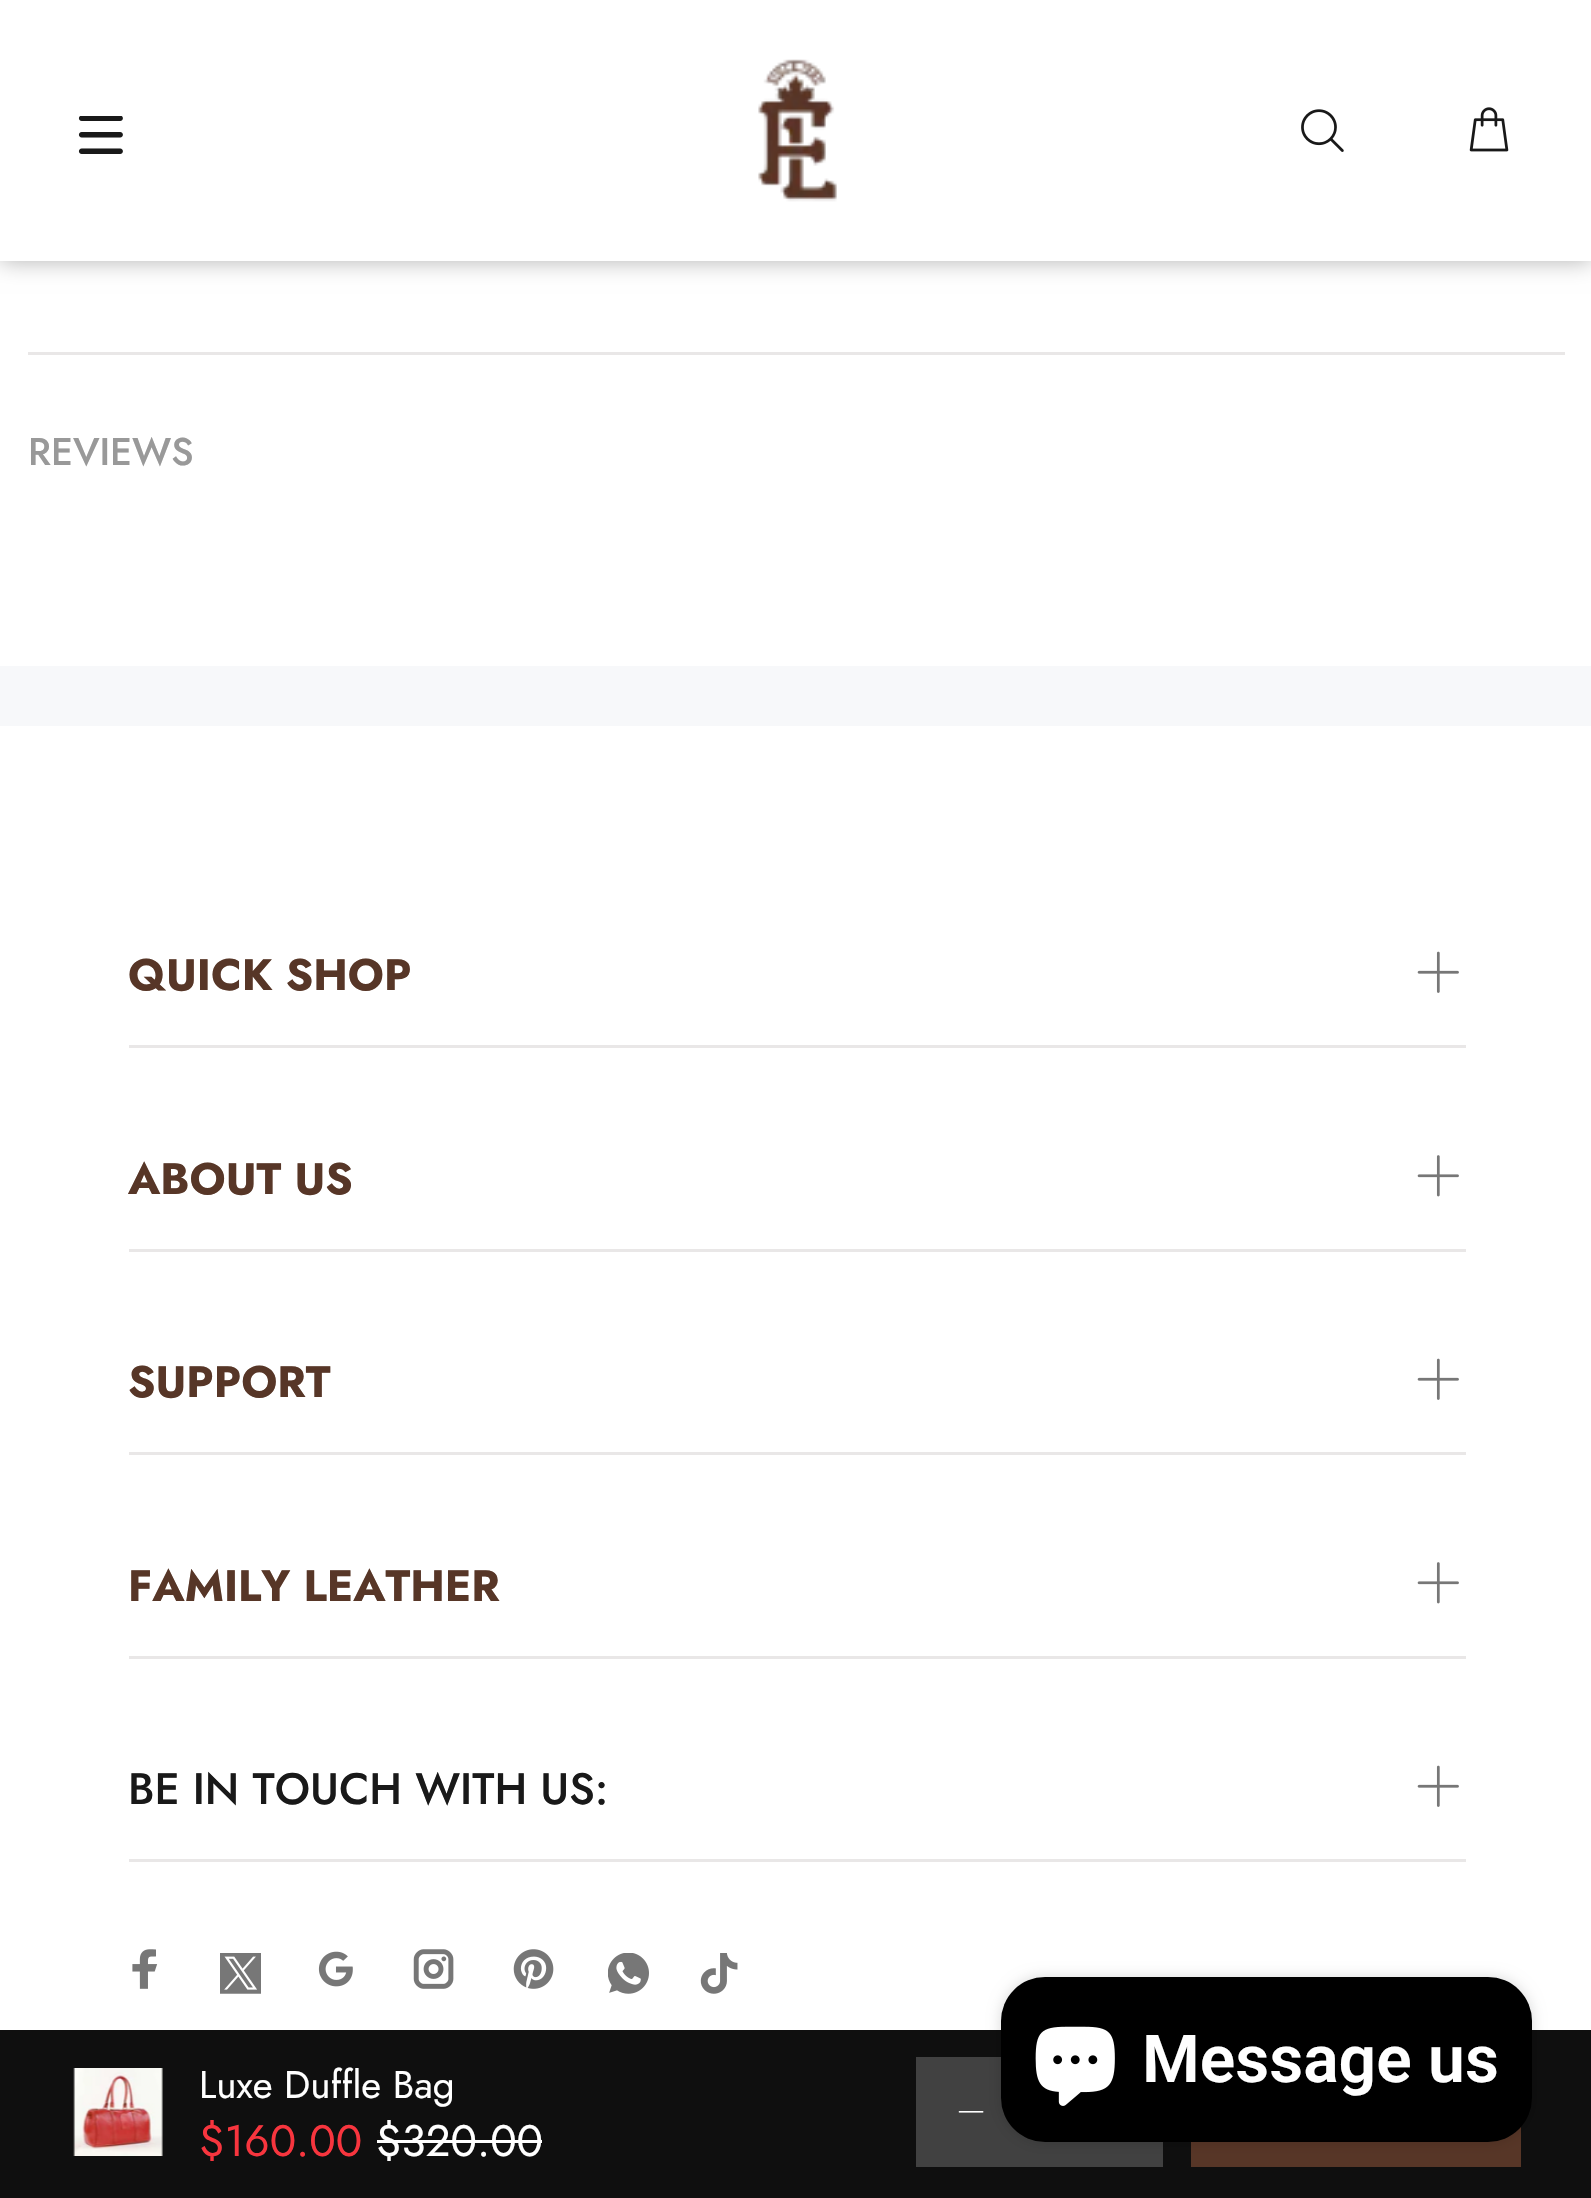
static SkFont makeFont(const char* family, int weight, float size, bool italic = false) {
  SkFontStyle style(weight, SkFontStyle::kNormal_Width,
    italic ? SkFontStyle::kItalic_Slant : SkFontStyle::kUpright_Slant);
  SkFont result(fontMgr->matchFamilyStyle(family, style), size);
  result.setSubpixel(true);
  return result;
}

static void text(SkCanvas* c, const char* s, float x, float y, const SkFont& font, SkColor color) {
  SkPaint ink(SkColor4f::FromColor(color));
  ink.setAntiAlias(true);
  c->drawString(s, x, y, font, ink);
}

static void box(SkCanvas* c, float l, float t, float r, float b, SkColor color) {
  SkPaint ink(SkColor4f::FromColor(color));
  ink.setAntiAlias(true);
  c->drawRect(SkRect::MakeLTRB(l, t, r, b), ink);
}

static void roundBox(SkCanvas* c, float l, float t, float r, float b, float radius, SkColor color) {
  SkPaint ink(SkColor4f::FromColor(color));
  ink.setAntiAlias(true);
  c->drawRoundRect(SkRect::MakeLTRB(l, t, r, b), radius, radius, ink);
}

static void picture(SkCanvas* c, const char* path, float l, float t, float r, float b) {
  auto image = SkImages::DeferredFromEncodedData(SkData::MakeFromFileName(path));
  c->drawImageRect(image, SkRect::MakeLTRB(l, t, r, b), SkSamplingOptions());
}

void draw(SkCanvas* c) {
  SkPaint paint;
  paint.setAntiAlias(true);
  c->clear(0xffffffff);
  paint.setColor(0x4d000000);
  paint.setMaskFilter(SkMaskFilter::MakeBlur(kNormal_SkBlurStyle, 11));
  c->drawRect(SkRect::MakeLTRB(0, 0, 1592, 261), paint);
  paint.setMaskFilter(nullptr);
  box(c, 0, 0, 1591, 261, 0xffffffff);
  picture(c, "img_01.png", 78, 116, 123, 154);
  picture(c, "img_02.png", 758, 59, 837, 202);
  picture(c, "img_03.png", 1301, 109, 1344, 152);
  picture(c, "img_04.png", 1469, 107, 1509, 152);
  box(c, 28, 352, 1565, 355, 0xffe9e7e7);
  SkFont face1 = makeFont("Jost", 500, 38.5f);
  text(c, "REVIEWS", 28, 465, face1, 0xff999999);
  box(c, 0, 666, 1591, 726, 0xfff7f8fa);
  box(c, 0, 2030, 1591, 2198, 0xff0f0f0f);
  picture(c, "img_05.png", 73, 2068, 163, 2156);
  SkFont face2 = makeFont("Jost", 400, 38.5f);
  text(c, "Luxe Duffle Bag", 199, 2098, face2, 0xffffffff);
  SkFont face3 = makeFont("Jost", 400, 44);
  text(c, "$160.00", 199, 2156, face3, 0xfff8353e);
  text(c, "$320.00", 376, 2156, face3, 0xffffffff);
  box(c, 377, 2140, 542, 2143, 0xffffffff);
  box(c, 916, 2057, 1163, 2167, 0xff414141);
  picture(c, "img_06.png", 958, 2111, 984, 2113);
  box(c, 1191, 2127, 1521, 2167, 0xff573627);
  box(c, 129, 1045, 1466, 1048, 0xffe9e7e7);
  SkFont face4 = makeFont("Jost", 700, 44);
  text(c, "QUICK SHOP", 128, 990, face4, 0xff573627);
  picture(c, "img_07.png", 1417, 951, 1459, 993);
  box(c, 129, 1249, 1466, 1252, 0xffe9e7e7);
  text(c, "ABOUT US", 128, 1194, face4, 0xff573627);
  picture(c, "img_08.png", 1417, 1155, 1459, 1197);
  box(c, 129, 1452, 1466, 1455, 0xffe9e7e7);
  text(c, "SUPPORT", 128, 1397, face4, 0xff573627);
  picture(c, "img_07.png", 1417, 1358, 1459, 1400);
  box(c, 129, 1656, 1466, 1659, 0xffe9e7e7);
  text(c, "FAMILY LEATHER", 128, 1601, face4, 0xff573627);
  picture(c, "img_08.png", 1417, 1562, 1459, 1604);
  box(c, 129, 1859, 1466, 1862, 0xffe9e7e7);
  SkFont face5 = makeFont("Jost", 500, 44);
  text(c, "BE IN TOUCH WITH US:", 128, 1804, face5, 0xff191919);
  picture(c, "img_07.png", 1417, 1765, 1459, 1807);
  picture(c, "img_09.png", 132, 1949, 158, 1989);
  picture(c, "img_10.png", 220, 1953, 261, 1994);
  picture(c, "img_11.png", 318, 1951, 353, 1987);
  picture(c, "img_12.png", 413, 1949, 454, 1989);
  picture(c, "img_13.png", 513, 1949, 554, 1989);
  picture(c, "img_14.png", 608, 1953, 649, 1994);
  picture(c, "img_15.png", 700, 1953, 738, 1994);
  paint.setColor(0x26000000);
  paint.setMaskFilter(SkMaskFilter::MakeBlur(kNormal_SkBlurStyle, 7));
  c->drawRoundRect(SkRect::MakeLTRB(1001, 1977, 1532, 2142), 44, 44, paint);
  paint.setMaskFilter(nullptr);
  roundBox(c, 1001, 1977, 1532, 2142, 44, 0xff000000);
  picture(c, "img_16.png", 1035, 2026, 1115, 2106);
  SkFont face6 = makeFont("Roboto", 600, 66);
  text(c, "Message us", 1142, 2082, face6, 0xffffffff);
}
